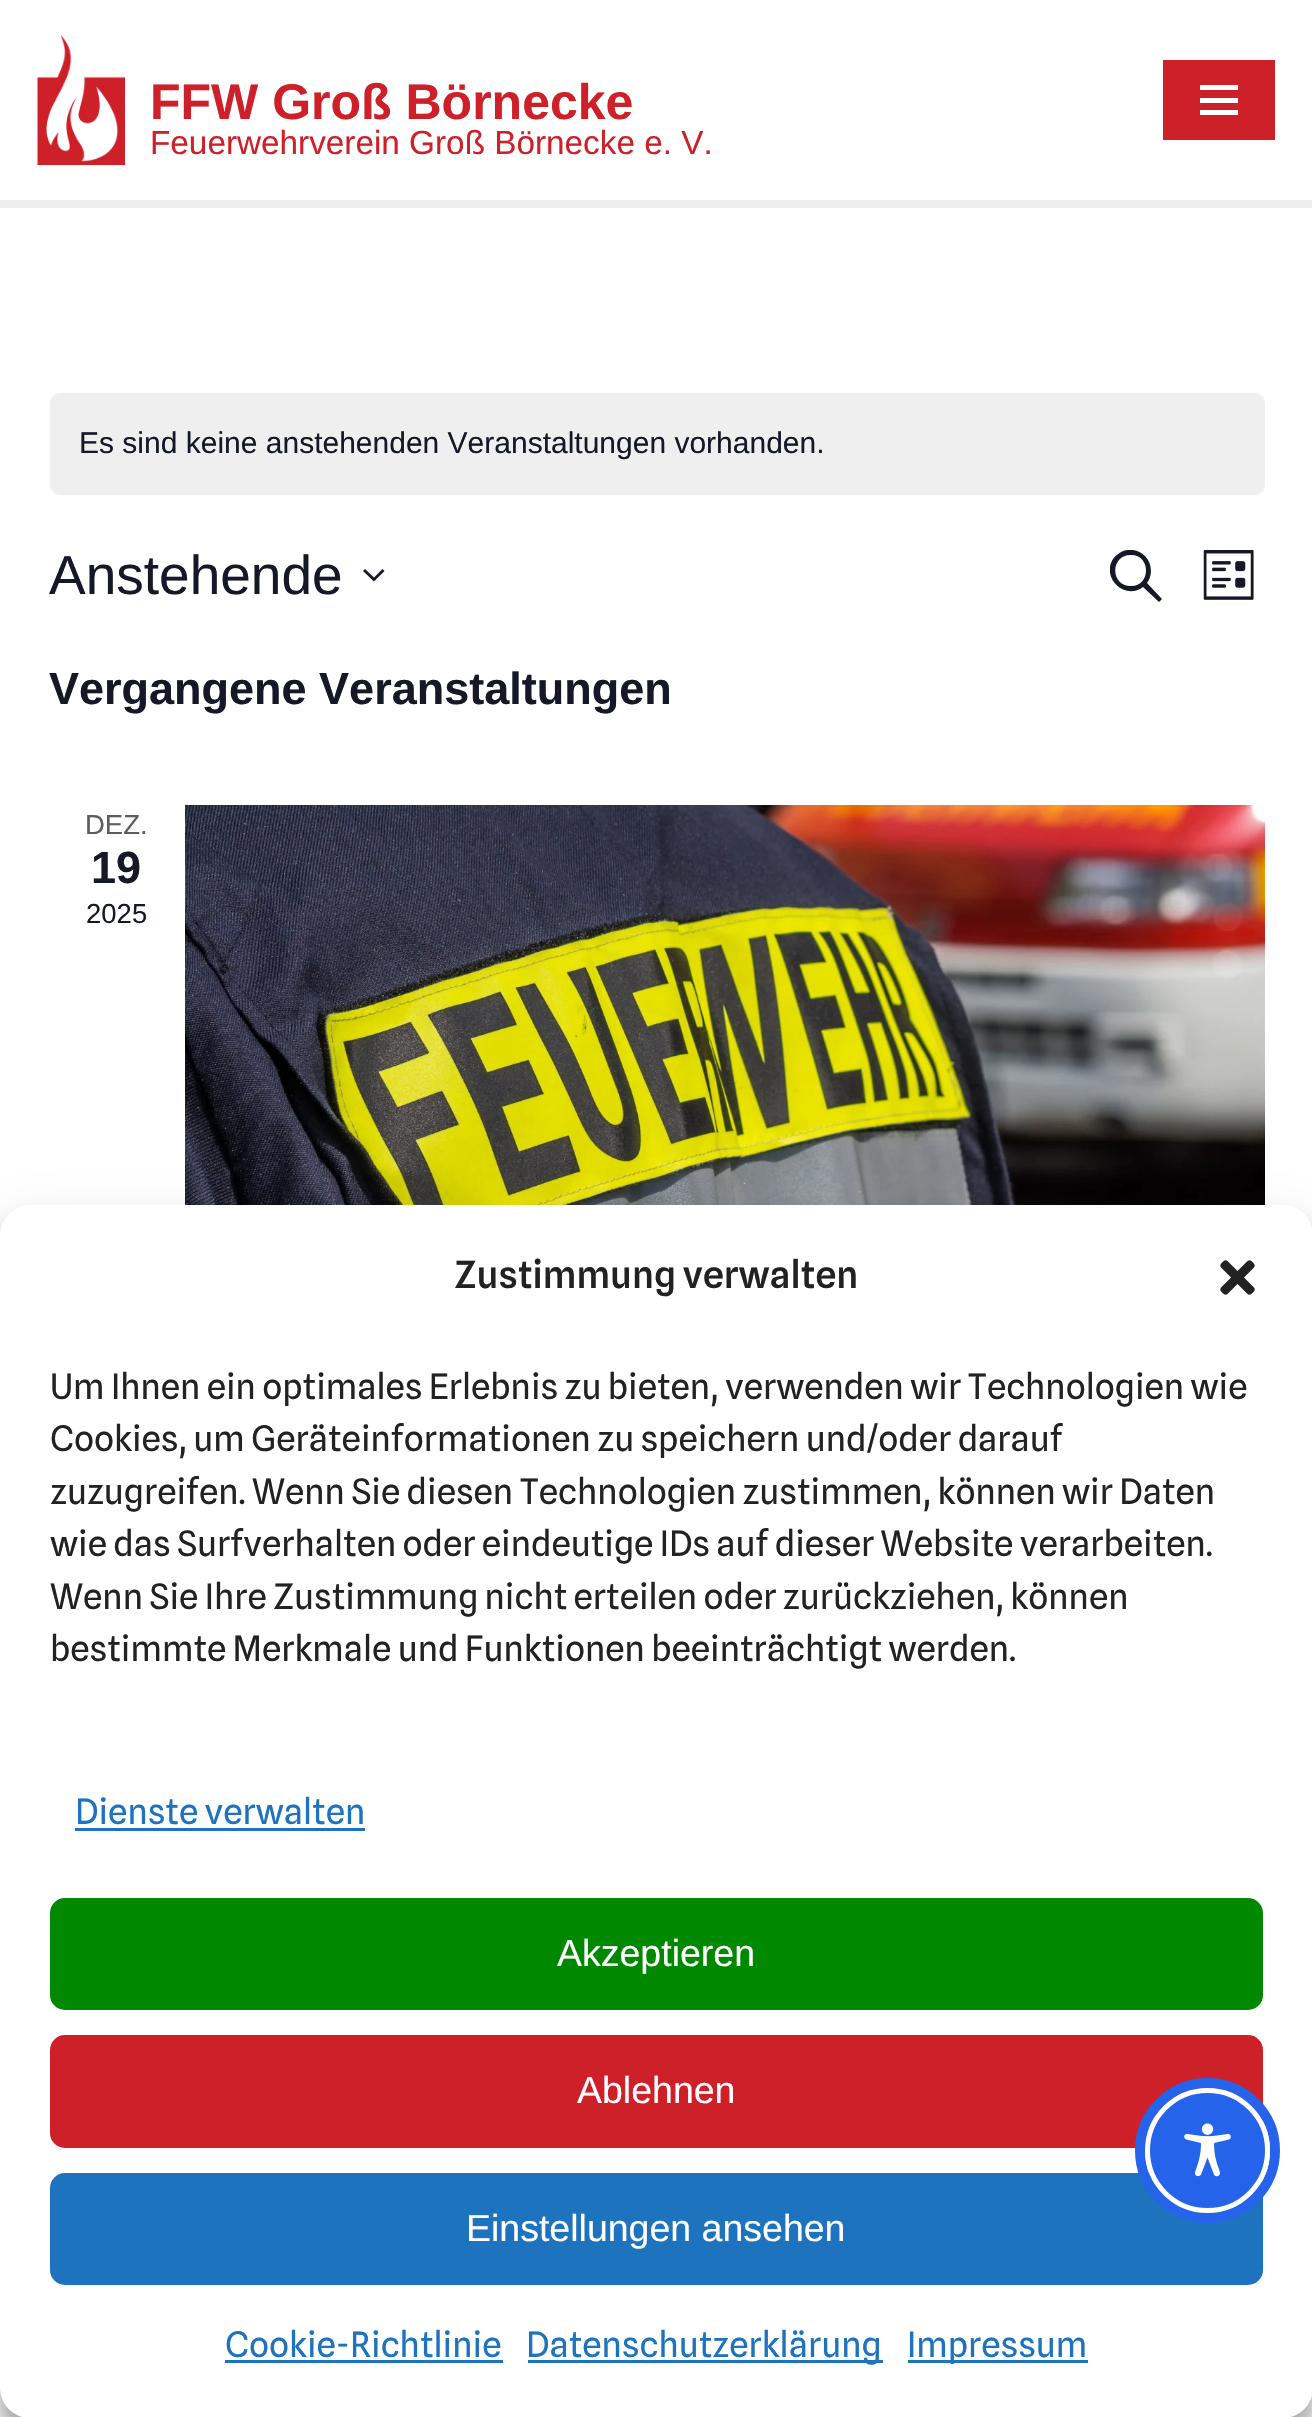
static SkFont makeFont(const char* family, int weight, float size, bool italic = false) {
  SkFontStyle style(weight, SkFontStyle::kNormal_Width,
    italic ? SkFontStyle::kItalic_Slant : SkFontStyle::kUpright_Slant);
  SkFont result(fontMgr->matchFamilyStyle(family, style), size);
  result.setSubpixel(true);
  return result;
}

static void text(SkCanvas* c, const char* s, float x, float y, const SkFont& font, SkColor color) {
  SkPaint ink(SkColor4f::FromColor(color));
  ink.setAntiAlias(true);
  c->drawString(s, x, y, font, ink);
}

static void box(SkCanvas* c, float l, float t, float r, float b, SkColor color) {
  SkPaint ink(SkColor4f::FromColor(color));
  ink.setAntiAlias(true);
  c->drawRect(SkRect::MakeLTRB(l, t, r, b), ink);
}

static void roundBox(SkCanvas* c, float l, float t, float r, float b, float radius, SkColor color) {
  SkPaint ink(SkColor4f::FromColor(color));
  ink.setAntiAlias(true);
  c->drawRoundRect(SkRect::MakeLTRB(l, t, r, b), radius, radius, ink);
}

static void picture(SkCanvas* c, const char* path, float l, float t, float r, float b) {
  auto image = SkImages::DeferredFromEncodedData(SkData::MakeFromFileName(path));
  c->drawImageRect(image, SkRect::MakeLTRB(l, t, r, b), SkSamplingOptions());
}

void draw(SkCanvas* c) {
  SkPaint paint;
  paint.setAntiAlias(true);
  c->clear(0xffffffff);
  box(c, 0, 200, 1312, 208, 0xffededed);
  picture(c, "img_01.png", 37, 35, 125, 165);
  SkFont face1 = makeFont("Liberation Sans", 700, 50);
  text(c, "FFW Groß Börnecke", 150, 119, face1, 0xffce2029);
  SkFont face2 = makeFont("Liberation Sans", 400, 33.3f);
  text(c, "Feuerwehrverein Groß Börnecke e. V.", 150, 154, face2, 0xffce2029);
  box(c, 1163, 60, 1275, 140, 0xffce2029);
  box(c, 1200, 85, 1238, 90, 0xffffffff);
  box(c, 1200, 98, 1238, 103, 0xffffffff);
  box(c, 1200, 110, 1238, 115, 0xffffffff);
  roundBox(c, 50, 393, 1265, 495, 10, 0xffefeff0);
  SkFont face3 = makeFont("Liberation Sans", 400, 30);
  text(c, "Es sind keine anstehenden Veranstaltungen vorhanden.", 79, 453, face3, 0xff141827);
  SkFont face4 = makeFont("Liberation Sans", 400, 55);
  text(c, "Anstehende", 49, 594, face4, 0xff141827);
  paint.setColor(0xff141827);
  c->drawPath(SkPathBuilder(SkPathFillType::kEvenOdd).moveTo(365, 569).lineTo(374, 577.5f).lineTo(382.5f, 569).lineTo(384.5f, 571).lineTo(374, 581.5f).lineTo(363, 571).close().detach(), paint);
  c->save();
  c->clipRect(SkRect::MakeLTRB(1110, 550, 1163, 603));
  c->drawPath(SkPathBuilder(SkPathFillType::kEvenOdd).moveTo(1147, 583).lineTo(1162, 599).lineTo(1159, 602).lineTo(1143, 587).cubicTo(1125, 601, 1101, 578, 1113, 559).cubicTo(1116, 555, 1121, 551, 1127, 550).cubicTo(1133, 549, 1140, 551, 1145, 556).cubicTo(1152, 563, 1153, 575, 1147, 583).close().moveTo(1131, 555).cubicTo(1110, 555, 1110, 586, 1131, 586).cubicTo(1151, 586, 1151, 555, 1131, 555).close().detach(), paint);
  c->restore();
  picture(c, "img_02.png", 1203, 550, 1254, 600);
  SkFont face5 = makeFont("Liberation Sans", 700, 45);
  text(c, "Vergangene Veranstaltungen", 49, 704, face5, 0xff141827);
  SkFont face6 = makeFont("Liberation Sans", 400, 27.5f);
  text(c, "DEZ.", 85, 834, face6, 0xff5d5d5d);
  text(c, "19", 91, 883, face5, 0xff141827);
  text(c, "2025", 86, 923, face6, 0xff141827);
  picture(c, "img_03.png", 185, 805, 1265, 1205);
  paint.setColor(0x3b000000);
  paint.setMaskFilter(SkMaskFilter::MakeBlur(kNormal_SkBlurStyle, 7.5f));
  c->drawRoundRect(SkRect::MakeLTRB(0, 1220, 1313, 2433), 30, 30, paint);
  paint.setMaskFilter(nullptr);
  paint.setColor(0x30000000);
  paint.setMaskFilter(SkMaskFilter::MakeBlur(kNormal_SkBlurStyle, 25));
  c->drawRoundRect(SkRect::MakeLTRB(0, 1230, 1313, 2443), 30, 30, paint);
  paint.setMaskFilter(nullptr);
  roundBox(c, 0, 1205, 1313, 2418, 30, 0xffffffff);
  SkFont face7 = makeFont("Spline Sans", 500, 37.5f);
  text(c, "Zustimmung verwalten", 454, 1288, face7, 0xff222222);
  picture(c, "img_04.png", 1220, 1260, 1255, 1295);
  SkFont face8 = makeFont("Spline Sans", 400, 35);
  text(c, "Um Ihnen ein optimales Erlebnis zu bieten, verwenden wir Technologien wie", 50, 1399, face8, 0xff222222);
  text(c, "Cookies, um Geräteinformationen zu speichern und/oder darauf", 50, 1451, face8, 0xff222222);
  text(c, "zuzugreifen. Wenn Sie diesen Technologien zustimmen, können wir Daten", 50, 1504, face8, 0xff222222);
  text(c, "wie das Surfverhalten oder eindeutige IDs auf dieser Website verarbeiten.", 50, 1556, face8, 0xff222222);
  text(c, "Wenn Sie Ihre Zustimmung nicht erteilen oder zurückziehen, können", 50, 1609, face8, 0xff222222);
  text(c, "bestimmte Merkmale und Funktionen beeinträchtigt werden.", 50, 1661, face8, 0xff222222);
  text(c, "Dienste verwalten", 75, 1824, face8, 0xff1e73be);
  box(c, 75, 1828, 365, 1831, 0xff1e73be);
  paint.setColor(0xff008800);
  c->drawRoundRect(SkRect::MakeLTRB(51.5f, 1899.5f, 1261.5f, 2008.5f), 13.5f, 13.5f, paint);
  paint.setStyle(SkPaint::kStroke_Style);
  paint.setStrokeWidth(3);
  c->drawRoundRect(SkRect::MakeLTRB(51.5f, 1899.5f, 1261.5f, 2008.5f), 13.5f, 13.5f, paint);
  SkFont face9 = makeFont("Liberation Sans", 400, 37.5f);
  text(c, "Akzeptieren", 557, 1966, face9, 0xffffffff);
  paint.setStyle(SkPaint::kFill_Style);
  paint.setColor(0xffce2029);
  c->drawRoundRect(SkRect::MakeLTRB(51.5f, 2036.5f, 1261.5f, 2146.5f), 13.5f, 13.5f, paint);
  paint.setStyle(SkPaint::kStroke_Style);
  c->drawRoundRect(SkRect::MakeLTRB(51.5f, 2036.5f, 1261.5f, 2146.5f), 13.5f, 13.5f, paint);
  text(c, "Ablehnen", 577, 2103, face9, 0xffffffff);
  paint.setStyle(SkPaint::kFill_Style);
  paint.setColor(0xff1e73be);
  c->drawRoundRect(SkRect::MakeLTRB(51.5f, 2174.5f, 1261.5f, 2283.5f), 13.5f, 13.5f, paint);
  paint.setStyle(SkPaint::kStroke_Style);
  c->drawRoundRect(SkRect::MakeLTRB(51.5f, 2174.5f, 1261.5f, 2283.5f), 13.5f, 13.5f, paint);
  text(c, "Einstellungen ansehen", 466, 2241, face9, 0xffffffff);
  text(c, "Cookie-Richtlinie", 225, 2357, face8, 0xff1e73be);
  box(c, 225, 2360, 503, 2363, 0xff1e73be);
  box(c, 528, 2360, 883, 2363, 0xff1e73be);
  text(c, "Datenschutzerklärung", 526, 2357, face8, 0xff1e73be);
  box(c, 908, 2360, 1088, 2363, 0xff1e73be);
  text(c, "Impressum", 907, 2357, face8, 0xff1e73be);
  paint.setStrokeWidth(10);
  paint.setColor(0xff2563eb);
  c->drawCircle(1207.5f, 2150.5f, 67.5f, paint);
  paint.setStyle(SkPaint::kFill_Style);
  c->drawCircle(1207.5f, 2150.5f, 60, paint);
  paint.setStyle(SkPaint::kStroke_Style);
  paint.setStrokeWidth(5);
  paint.setColor(0xffffffff);
  c->drawCircle(1207.5f, 2150.5f, 60, paint);
  picture(c, "img_05.png", 1184, 2123, 1231, 2177);
}
